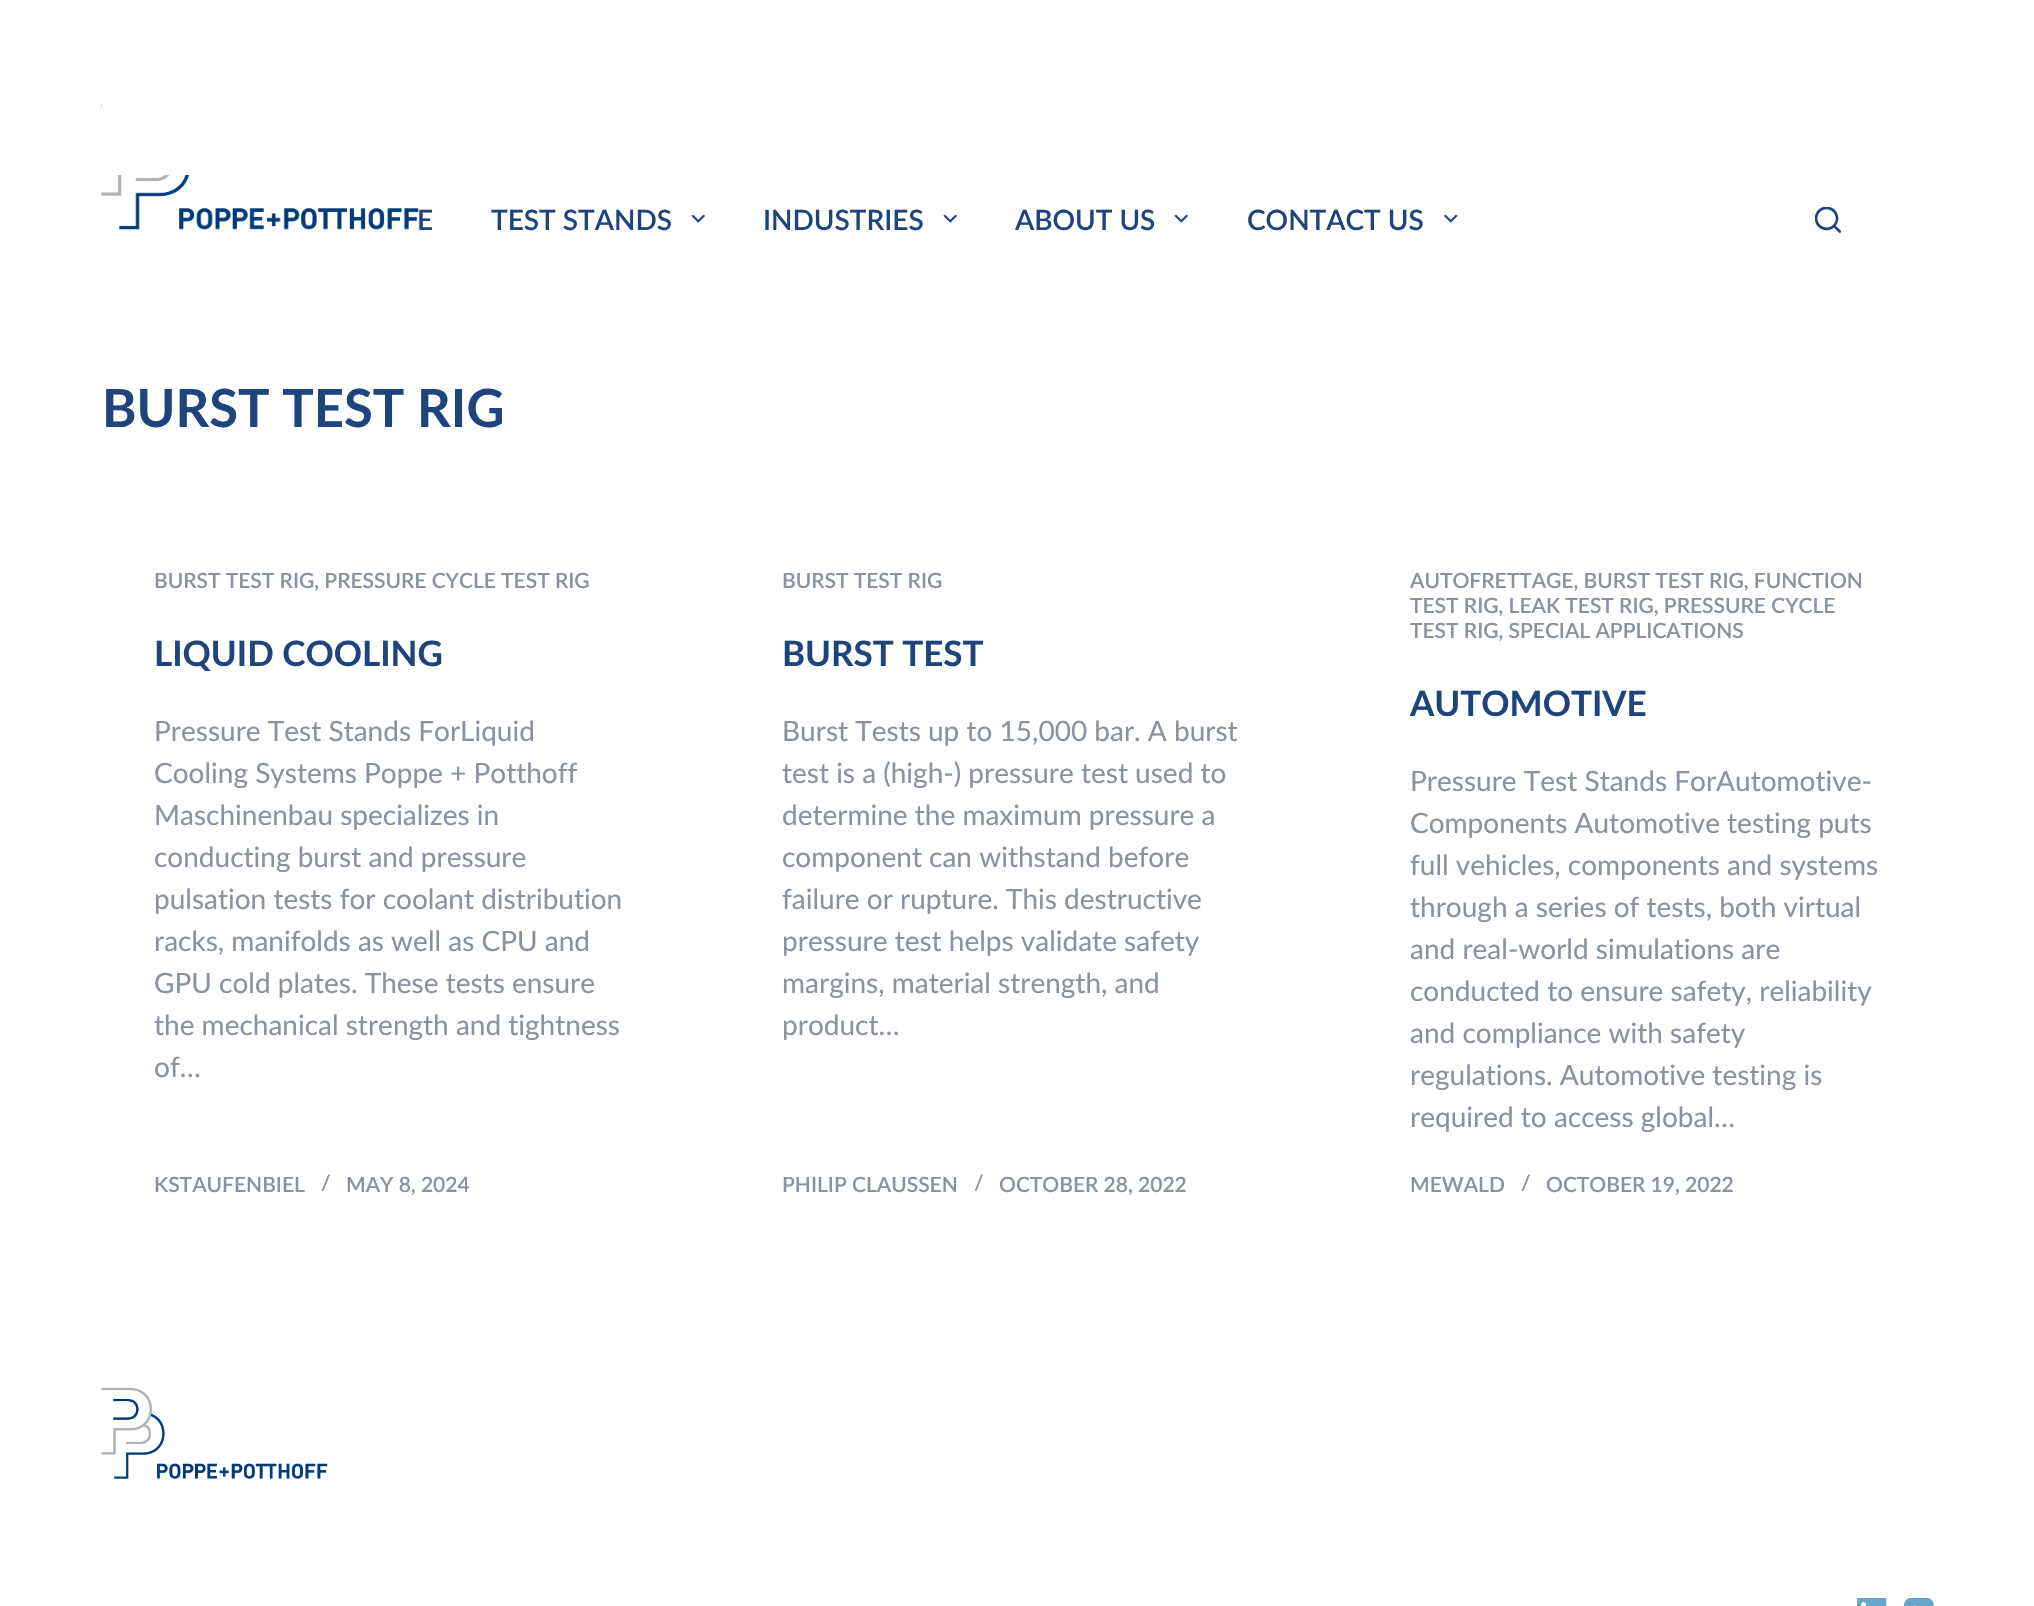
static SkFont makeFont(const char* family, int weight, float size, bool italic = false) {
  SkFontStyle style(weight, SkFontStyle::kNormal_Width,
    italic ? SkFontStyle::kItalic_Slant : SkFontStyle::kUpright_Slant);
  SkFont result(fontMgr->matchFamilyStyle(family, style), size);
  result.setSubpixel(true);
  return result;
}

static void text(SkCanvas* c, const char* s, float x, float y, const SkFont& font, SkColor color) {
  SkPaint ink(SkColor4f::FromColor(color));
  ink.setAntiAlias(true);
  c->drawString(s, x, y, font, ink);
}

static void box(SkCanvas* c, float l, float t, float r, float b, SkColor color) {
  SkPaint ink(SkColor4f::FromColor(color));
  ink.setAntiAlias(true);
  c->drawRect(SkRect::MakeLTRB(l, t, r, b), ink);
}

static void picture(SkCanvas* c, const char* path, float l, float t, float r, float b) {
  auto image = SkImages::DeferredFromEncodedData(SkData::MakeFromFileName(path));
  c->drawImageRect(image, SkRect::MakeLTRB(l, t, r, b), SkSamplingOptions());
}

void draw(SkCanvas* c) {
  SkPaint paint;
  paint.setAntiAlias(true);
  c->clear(0xffffffff);
  picture(c, "img_01.png", 101, 103, 419, 230);
  box(c, 102, 103, 191, 175, 0xffffffff);
  SkFont face1 = makeFont("Lato", 600, 28);
  text(c, "E", 417, 230, face1, 0xff1e457b);
  text(c, "TEST STANDS", 491, 230, face1, 0xff1e457b);
  picture(c, "img_02.png", 691, 214, 705, 223);
  text(c, "INDUSTRIES", 763, 230, face1, 0xff1e457b);
  picture(c, "img_02.png", 943, 214, 957, 223);
  text(c, "ABOUT US", 1015, 230, face1, 0xff1e457b);
  picture(c, "img_02.png", 1174, 214, 1188, 223);
  text(c, "CONTACT US", 1247, 230, face1, 0xff1e457b);
  picture(c, "img_03.png", 1444, 214, 1458, 223);
  picture(c, "img_04.png", 1815, 207, 1841, 233);
  SkFont face2 = makeFont("Lato", 700, 52.5f);
  text(c, "BURST TEST RIG", 102, 427, face2, 0xff1e457b);
  SkFont face3 = makeFont("Lato", 600, 21);
  text(c, "BURST TEST RIG, PRESSURE CYCLE TEST RIG", 154, 588, face3, 0xff8a92a0);
  SkFont face4 = makeFont("Lato", 700, 35);
  text(c, "LIQUID COOLING", 154, 666, face4, 0xff1e457b);
  SkFont face5 = makeFont("Lato", 400, 28);
  text(c, "Pressure Test Stands ForLiquid", 154, 741, face5, 0xff8a92a0);
  text(c, "Cooling Systems Poppe + Potthoff", 154, 783, face5, 0xff8a92a0);
  text(c, "Maschinenbau specializes in", 154, 825, face5, 0xff8a92a0);
  text(c, "conducting burst and pressure", 154, 867, face5, 0xff8a92a0);
  text(c, "pulsation tests for coolant distribution", 154, 909, face5, 0xff8a92a0);
  text(c, "racks, manifolds as well as CPU and", 154, 951, face5, 0xff8a92a0);
  text(c, "GPU cold plates. These tests ensure", 154, 993, face5, 0xff8a92a0);
  text(c, "the mechanical strength and tightness", 154, 1035, face5, 0xff8a92a0);
  text(c, "of…", 154, 1077, face5, 0xff8a92a0);
  text(c, "KSTAUFENBIEL", 154, 1192, face3, 0xff8a92a0);
  text(c, "/", 321, 1190, face3, 0xff8a92a0);
  text(c, "MAY 8, 2024", 346, 1192, face3, 0xff8a92a0);
  text(c, "BURST TEST RIG", 782, 588, face3, 0xff8a92a0);
  text(c, "BURST TEST", 782, 666, face4, 0xff1e457b);
  text(c, "Burst Tests up to 15,000 bar. A burst", 782, 741, face5, 0xff8a92a0);
  text(c, "test is a (high-) pressure test used to", 782, 783, face5, 0xff8a92a0);
  text(c, "determine the maximum pressure a", 782, 825, face5, 0xff8a92a0);
  text(c, "component can withstand before", 782, 867, face5, 0xff8a92a0);
  text(c, "failure or rupture. This destructive", 782, 909, face5, 0xff8a92a0);
  text(c, "pressure test helps validate safety", 782, 951, face5, 0xff8a92a0);
  text(c, "margins, material strength, and", 782, 993, face5, 0xff8a92a0);
  text(c, "product…", 782, 1035, face5, 0xff8a92a0);
  text(c, "PHILIP CLAUSSEN", 782, 1192, face3, 0xff8a92a0);
  text(c, "/", 974, 1190, face3, 0xff8a92a0);
  text(c, "OCTOBER 28, 2022", 999, 1192, face3, 0xff8a92a0);
  text(c, "AUTOFRETTAGE, BURST TEST RIG, FUNCTION", 1410, 588, face3, 0xff8a92a0);
  text(c, "TEST RIG, LEAK TEST RIG, PRESSURE CYCLE", 1410, 613, face3, 0xff8a92a0);
  text(c, "TEST RIG, SPECIAL APPLICATIONS", 1410, 638, face3, 0xff8a92a0);
  text(c, "AUTOMOTIVE", 1410, 716, face4, 0xff1e457b);
  text(c, "Pressure Test Stands ForAutomotive-", 1410, 791, face5, 0xff8a92a0);
  text(c, "Components Automotive testing puts", 1410, 833, face5, 0xff8a92a0);
  text(c, "full vehicles, components and systems", 1410, 875, face5, 0xff8a92a0);
  text(c, "through a series of tests, both virtual", 1410, 917, face5, 0xff8a92a0);
  text(c, "and real-world simulations are", 1410, 959, face5, 0xff8a92a0);
  text(c, "conducted to ensure safety, reliability", 1410, 1001, face5, 0xff8a92a0);
  text(c, "and compliance with safety", 1410, 1043, face5, 0xff8a92a0);
  text(c, "regulations. Automotive testing is", 1410, 1085, face5, 0xff8a92a0);
  text(c, "required to access global…", 1410, 1127, face5, 0xff8a92a0);
  text(c, "MEWALD", 1410, 1192, face3, 0xff8a92a0);
  text(c, "/", 1521, 1190, face3, 0xff8a92a0);
  text(c, "OCTOBER 19, 2022", 1546, 1192, face3, 0xff8a92a0);
  picture(c, "img_05.png", 101, 1387, 328, 1479);
  picture(c, "img_06.png", 1857, 1598, 1887, 1606);
  picture(c, "img_07.png", 1904, 1598, 1934, 1606);
}
